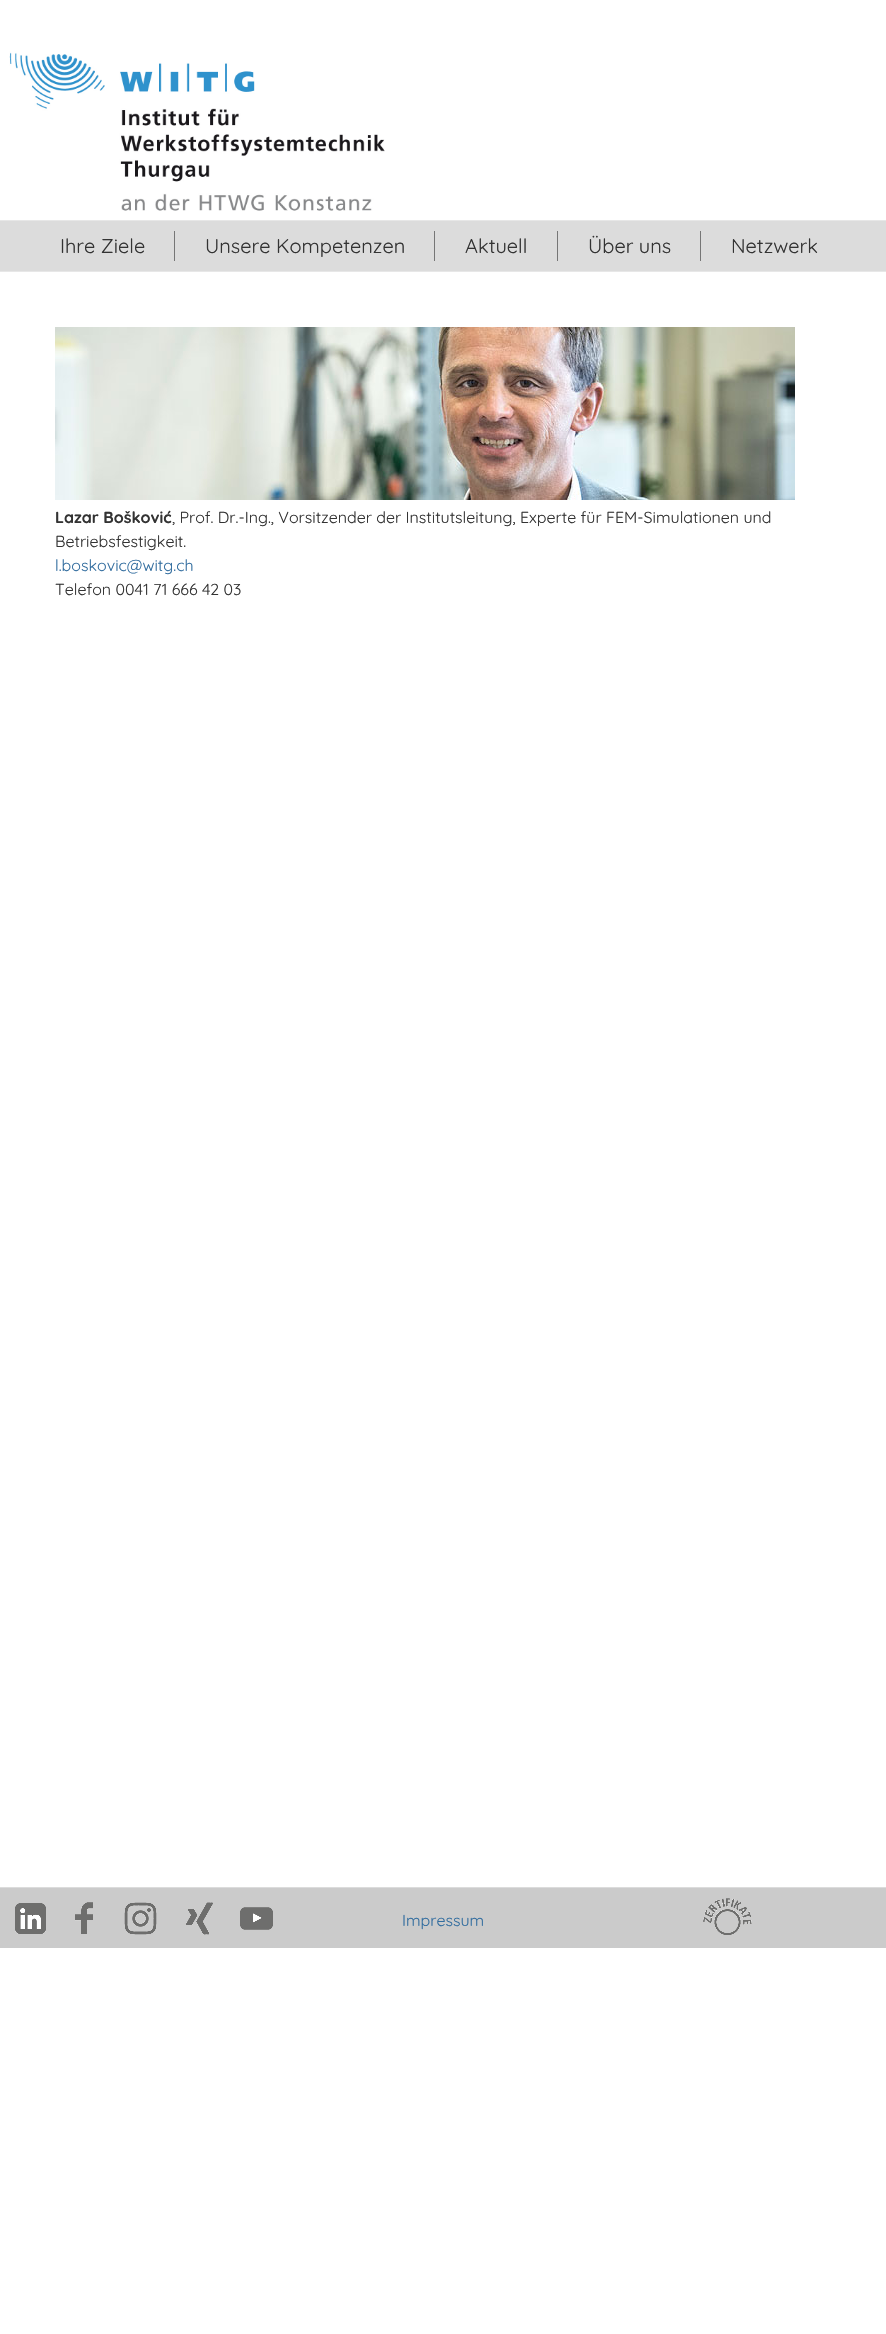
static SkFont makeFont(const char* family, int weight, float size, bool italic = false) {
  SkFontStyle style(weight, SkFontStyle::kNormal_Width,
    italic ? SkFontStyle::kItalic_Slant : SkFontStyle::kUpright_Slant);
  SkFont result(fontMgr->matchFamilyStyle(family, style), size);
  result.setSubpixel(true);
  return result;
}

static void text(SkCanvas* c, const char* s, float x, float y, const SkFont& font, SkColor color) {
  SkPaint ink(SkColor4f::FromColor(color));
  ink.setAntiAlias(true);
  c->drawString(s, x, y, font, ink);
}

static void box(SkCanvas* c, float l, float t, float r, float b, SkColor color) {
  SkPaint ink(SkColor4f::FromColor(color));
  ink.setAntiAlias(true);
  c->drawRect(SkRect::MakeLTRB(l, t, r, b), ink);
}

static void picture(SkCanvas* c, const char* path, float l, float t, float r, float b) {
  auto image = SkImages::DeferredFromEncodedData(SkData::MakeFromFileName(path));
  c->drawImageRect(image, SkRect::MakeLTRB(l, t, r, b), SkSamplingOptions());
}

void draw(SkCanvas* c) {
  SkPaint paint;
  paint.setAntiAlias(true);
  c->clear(0xffffffff);
  picture(c, "img_01.png", 9, 50, 385, 211);
  box(c, 0, 221, 886, 271, 0xffdcdcdc);
  box(c, 0, 220, 886, 221, 0xffe7e7e7);
  box(c, 0, 271, 886, 272, 0xffe7e7e7);
  SkFont face1 = makeFont("Quicksand", 400, 20);
  text(c, "Ihre Ziele", 60, 253, face1, 0xff333333);
  box(c, 174, 231, 175, 261, 0xff767676);
  text(c, "Unsere Kompetenzen", 205, 253, face1, 0xff333333);
  box(c, 434, 231, 435, 261, 0xff767676);
  text(c, "Aktuell", 465, 253, face1, 0xff333333);
  box(c, 557, 231, 558, 261, 0xff767676);
  text(c, "Über uns", 588, 253, face1, 0xff333333);
  box(c, 700, 231, 701, 261, 0xff767676);
  text(c, "Netzwerk", 731, 253, face1, 0xff333333);
  picture(c, "img_02.png", 55, 327, 795, 500);
  SkFont face2 = makeFont("Quicksand", 700, 16);
  text(c, "Lazar Bošković", 55, 523, face2, 0xff333333);
  SkFont face3 = makeFont("Quicksand", 400, 16);
  text(c, ", Prof. Dr.-Ing., Vorsitzender der Institutsleitung, Experte für FEM-Simulationen und", 172, 523, face3, 0xff333333);
  text(c, "Betriebsfestigkeit.", 55, 547, face3, 0xff333333);
  text(c, "l.boskovic@witg.ch", 55, 571, face3, 0xff326d9f);
  text(c, "Telefon 0041 71 666 42 03", 55, 595, face3, 0xff333333);
  box(c, 0, 1888, 886, 1948, 0xffcbcbcb);
  box(c, 0, 1887, 886, 1888, 0xffdcdcdc);
  picture(c, "img_03.png", 15, 1903, 46, 1934);
  picture(c, "img_04.png", 75, 1902, 93, 1934);
  picture(c, "img_05.png", 124, 1902, 157, 1935);
  picture(c, "img_06.png", 186, 1902, 213, 1935);
  picture(c, "img_07.png", 240, 1907, 273, 1930);
  picture(c, "img_08.png", 703, 1898, 752, 1935);
  text(c, "Impressum", 402, 1926, face3, 0xff326d9f);
}
